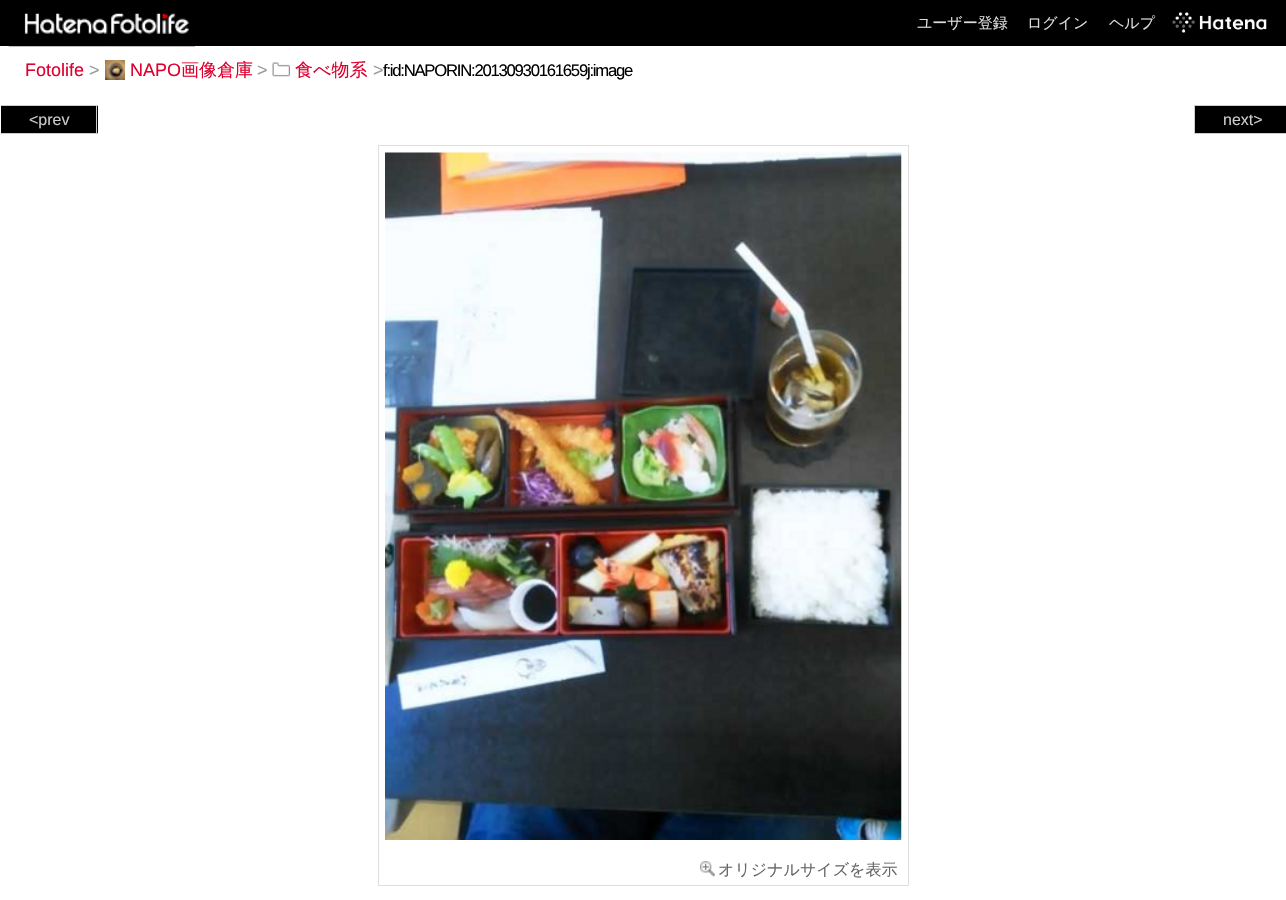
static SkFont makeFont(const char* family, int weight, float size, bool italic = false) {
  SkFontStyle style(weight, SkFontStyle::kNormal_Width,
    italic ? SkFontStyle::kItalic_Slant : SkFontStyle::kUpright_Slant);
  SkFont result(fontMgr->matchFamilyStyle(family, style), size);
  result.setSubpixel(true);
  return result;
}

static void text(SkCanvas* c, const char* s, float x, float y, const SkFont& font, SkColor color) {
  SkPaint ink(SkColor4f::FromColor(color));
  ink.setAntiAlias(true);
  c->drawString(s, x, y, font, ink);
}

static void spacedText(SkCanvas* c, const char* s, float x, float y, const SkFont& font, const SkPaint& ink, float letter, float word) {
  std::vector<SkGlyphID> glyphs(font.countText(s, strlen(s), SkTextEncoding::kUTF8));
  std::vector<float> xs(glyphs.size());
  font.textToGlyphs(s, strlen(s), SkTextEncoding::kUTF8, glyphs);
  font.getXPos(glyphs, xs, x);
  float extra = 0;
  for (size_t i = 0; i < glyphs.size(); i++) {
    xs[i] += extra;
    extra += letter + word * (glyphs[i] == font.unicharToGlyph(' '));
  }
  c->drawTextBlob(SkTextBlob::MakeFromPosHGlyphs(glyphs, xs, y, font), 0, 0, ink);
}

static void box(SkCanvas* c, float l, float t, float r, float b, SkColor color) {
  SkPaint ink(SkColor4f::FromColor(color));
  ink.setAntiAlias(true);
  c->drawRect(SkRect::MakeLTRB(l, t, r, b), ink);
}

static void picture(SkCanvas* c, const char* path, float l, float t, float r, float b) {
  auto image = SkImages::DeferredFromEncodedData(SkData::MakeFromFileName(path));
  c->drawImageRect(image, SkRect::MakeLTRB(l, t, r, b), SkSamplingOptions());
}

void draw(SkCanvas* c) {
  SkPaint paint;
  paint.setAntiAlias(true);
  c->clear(0xffffffff);
  box(c, 0, 0, 1286, 46, 0xff000000);
  picture(c, "img_01.png", 8, 13, 112, 47);
  picture(c, "img_02.png", 111, 13, 195, 47);
  SkFont face1 = makeFont("WenQuanYi Zen Hei", 500, 15);
  text(c, "ユーザー登録", 917, 28, face1, 0xffdddddd);
  text(c, "ログイン", 1027, 28, face1, 0xffdddddd);
  text(c, "ヘルプ", 1109, 28, face1, 0xffdddddd);
  picture(c, "img_03.png", 1172, 12, 1267, 33);
  SkFont face2 = makeFont("Liberation Sans", 400, 18);
  text(c, "Fotolife", 25, 76, face2, 0xffde002f);
  text(c, ">", 89, 76, face2, 0xff999999);
  picture(c, "img_04.png", 105, 60, 125, 80);
  text(c, "NAPO", 130, 76, face2, 0xffde002f);
  SkFont face3 = makeFont("WenQuanYi Zen Hei", 500, 18);
  text(c, "画像倉庫", 181, 76, face3, 0xffde002f);
  text(c, ">", 257, 76, face2, 0xff999999);
  picture(c, "img_05.png", 272, 62, 290, 77);
  text(c, "食べ物系", 295, 76, face3, 0xffde002f);
  text(c, ">", 373, 76, face2, 0xff999999);
  SkFont face4 = makeFont("Liberation Sans", 400, 16.7f);
  paint.setColor(0xff000000);
  spacedText(c, "f:id:NAPORIN:20130930161659j:image", 383, 76, face4, paint, -1.25f, 0);
  box(c, 1, 106, 98, 133, 0xff000000);
  box(c, 1, 105, 98, 106, 0xffcccccc);
  box(c, 96, 105, 97, 134, 0xffcccccc);
  box(c, 1, 133, 98, 134, 0xffcccccc);
  SkFont face5 = makeFont("Liberation Sans", 400, 16);
  text(c, "<prev", 29, 125, face5, 0xffcccccc);
  box(c, 1195, 106, 1286, 133, 0xff000000);
  box(c, 1194, 105, 1286, 106, 0xffcccccc);
  box(c, 1194, 133, 1286, 134, 0xffcccccc);
  box(c, 1194, 105, 1195, 134, 0xffcccccc);
  text(c, "next>", 1223, 125, face5, 0xffcccccc);
  paint.setStyle(SkPaint::kStroke_Style);
  paint.setStrokeWidth(1);
  paint.setColor(0xffdedede);
  c->drawRect(SkRect::MakeLTRB(378.5f, 145.5f, 908.5f, 885.5f), paint);
  picture(c, "img_06.png", 385, 152, 902, 840);
  picture(c, "img_07.png", 700, 861, 715, 877);
  SkFont face6 = makeFont("WenQuanYi Zen Hei", 500, 16);
  text(c, "オリジナルサイズを表示", 718, 875, face6, 0xff666666);
}
